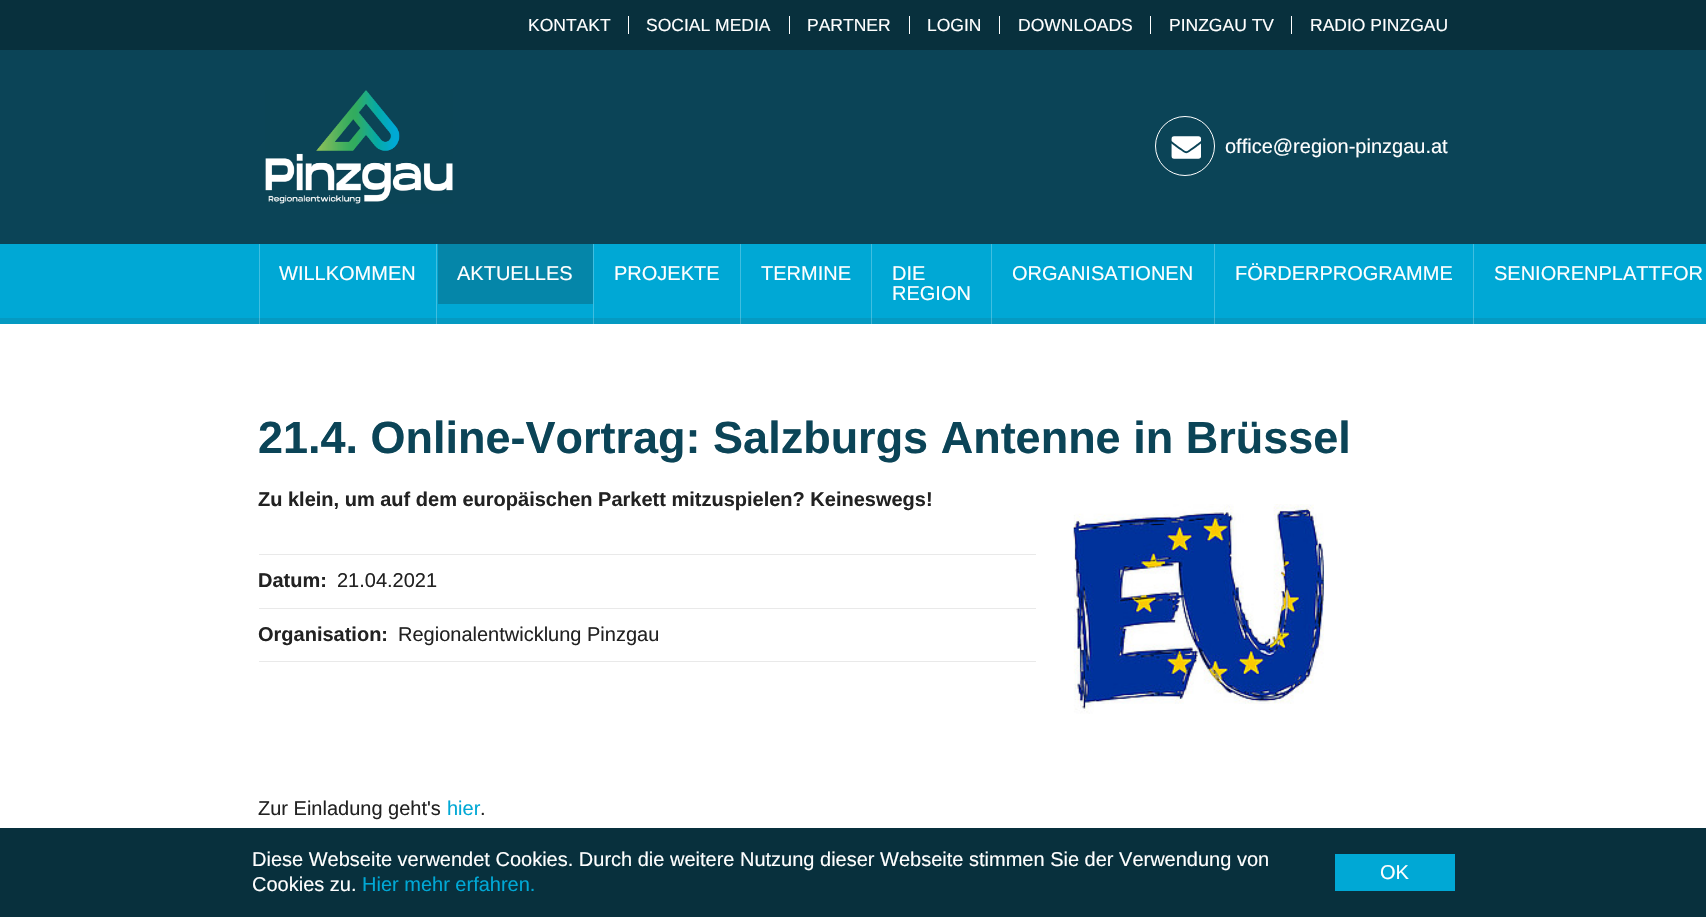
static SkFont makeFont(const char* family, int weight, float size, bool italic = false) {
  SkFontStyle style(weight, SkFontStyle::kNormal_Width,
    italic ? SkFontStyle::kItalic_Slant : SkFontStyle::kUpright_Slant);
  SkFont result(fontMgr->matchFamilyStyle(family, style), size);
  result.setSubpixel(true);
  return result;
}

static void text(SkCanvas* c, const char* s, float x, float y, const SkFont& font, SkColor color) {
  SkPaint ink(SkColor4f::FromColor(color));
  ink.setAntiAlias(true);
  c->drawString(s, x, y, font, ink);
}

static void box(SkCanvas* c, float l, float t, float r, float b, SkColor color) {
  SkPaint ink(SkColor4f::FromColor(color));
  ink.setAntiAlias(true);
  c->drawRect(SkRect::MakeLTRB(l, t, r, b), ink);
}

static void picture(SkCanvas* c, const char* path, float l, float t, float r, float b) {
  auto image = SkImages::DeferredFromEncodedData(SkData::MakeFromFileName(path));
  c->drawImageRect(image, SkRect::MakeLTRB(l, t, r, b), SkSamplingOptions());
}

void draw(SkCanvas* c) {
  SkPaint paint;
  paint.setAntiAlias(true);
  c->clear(0xffffffff);
  box(c, 0, 0, 1706, 50, 0xff08303d);
  box(c, 628, 16, 629, 34, 0xffffffff);
  SkFont face1 = makeFont("Liberation Sans", 400, 17.5f);
  text(c, "KONTAKT", 528, 31, face1, 0xffffffff);
  box(c, 789, 16, 790, 34, 0xffffffff);
  text(c, "SOCIAL MEDIA", 646, 31, face1, 0xffffffff);
  box(c, 909, 16, 910, 34, 0xffffffff);
  text(c, "PARTNER", 807, 31, face1, 0xffffffff);
  box(c, 999, 16, 1000, 34, 0xffffffff);
  text(c, "LOGIN", 927, 31, face1, 0xffffffff);
  box(c, 1150, 16, 1151, 34, 0xffffffff);
  text(c, "DOWNLOADS", 1018, 31, face1, 0xffffffff);
  box(c, 1291, 16, 1292, 34, 0xffffffff);
  text(c, "PINZGAU TV", 1169, 31, face1, 0xffffffff);
  text(c, "RADIO PINZGAU", 1310, 31, face1, 0xffffffff);
  box(c, 0, 50, 1706, 244, 0xff0b4457);
  picture(c, "img_01.png", 265, 90, 453, 204);
  paint.setStyle(SkPaint::kStroke_Style);
  paint.setStrokeWidth(1);
  paint.setColor(0xffffffff);
  c->drawCircle(1185, 146, 29.5f, paint);
  picture(c, "img_02.png", 1171, 136, 1201, 159);
  SkFont face2 = makeFont("Liberation Sans", 400, 20);
  text(c, "office@region-pinzgau.at", 1225, 153, face2, 0xffffffff);
  box(c, 0, 244, 1706, 318, 0xff00a8d5);
  box(c, 1473, 244, 1474, 324, 0xff40bee0);
  box(c, 1214, 244, 1215, 324, 0xff40bee0);
  box(c, 991, 244, 992, 324, 0xff40bee0);
  box(c, 871, 244, 872, 324, 0xff40bee0);
  box(c, 740, 244, 741, 324, 0xff40bee0);
  box(c, 593, 244, 594, 324, 0xff40bee0);
  box(c, 259, 244, 260, 324, 0xff40bee0);
  box(c, 436, 244, 437, 324, 0xff40bee0);
  text(c, "WILLKOMMEN", 279, 280, face2, 0xffffffff);
  box(c, 438, 244, 593, 304, 0xff0586a9);
  text(c, "AKTUELLES", 457, 280, face2, 0xffffffff);
  text(c, "PROJEKTE", 614, 280, face2, 0xffffffff);
  text(c, "TERMINE", 761, 280, face2, 0xffffffff);
  text(c, "DIE", 892, 280, face2, 0xffffffff);
  text(c, "REGION", 892, 300, face2, 0xffffffff);
  text(c, "ORGANISATIONEN", 1012, 280, face2, 0xffffffff);
  text(c, "FÖRDERPROGRAMME", 1235, 280, face2, 0xffffffff);
  text(c, "SENIORENPLATTFOR", 1494, 280, face2, 0xffffffff);
  box(c, 0, 318, 1706, 324, 0xff059ac2);
  box(c, 1473, 318, 1474, 324, 0xff44b3d1);
  box(c, 1214, 318, 1215, 324, 0xff44b3d1);
  box(c, 991, 318, 992, 324, 0xff44b3d1);
  box(c, 871, 318, 872, 324, 0xff44b3d1);
  box(c, 740, 318, 741, 324, 0xff44b3d1);
  box(c, 593, 318, 594, 324, 0xff44b3d1);
  box(c, 259, 318, 260, 324, 0xff44b3d1);
  box(c, 436, 318, 437, 324, 0xff44b3d1);
  SkFont face3 = makeFont("Liberation Sans", 700, 45);
  text(c, "21.4. Online-Vortrag: Salzburgs Antenne in Brüssel", 258, 453, face3, 0xff0b4457);
  SkFont face4 = makeFont("Liberation Sans", 700, 20);
  text(c, "Zu klein, um auf dem europäischen Parkett mitzuspielen? Keineswegs!", 258, 506, face4, 0xff222222);
  box(c, 259, 661, 1036, 662, 0xffe9e9e9);
  box(c, 259, 554, 1036, 555, 0xffe9e9e9);
  text(c, "Datum:", 258, 587, face4, 0xff222222);
  text(c, "21.04.2021", 337, 587, face2, 0xff222222);
  box(c, 259, 608, 1036, 609, 0xffe9e9e9);
  text(c, "Organisation:", 258, 641, face4, 0xff222222);
  text(c, "Regionalentwicklung Pinzgau", 398, 641, face2, 0xff222222);
  picture(c, "img_03.png", 1073, 504, 1324, 714);
  text(c, "Zur Einladung geht's", 258, 815, face2, 0xff222222);
  text(c, "hier", 447, 815, face2, 0xff00a8d5);
  text(c, ".", 480, 815, face2, 0xff222222);
  box(c, 0, 828, 1706, 917, 0xff08303d);
  text(c, "Diese Webseite verwendet Cookies. Durch die weitere Nutzung dieser Webseite stimmen Sie der Verwendung von", 252, 866, face2, 0xffffffff);
  text(c, "Cookies zu.", 252, 891, face2, 0xffffffff);
  text(c, "Hier mehr erfahren.", 362, 891, face2, 0xff00a8d5);
  box(c, 1335, 854, 1455, 891, 0xff00a8d5);
  text(c, "OK", 1380, 879, face2, 0xffffffff);
}
